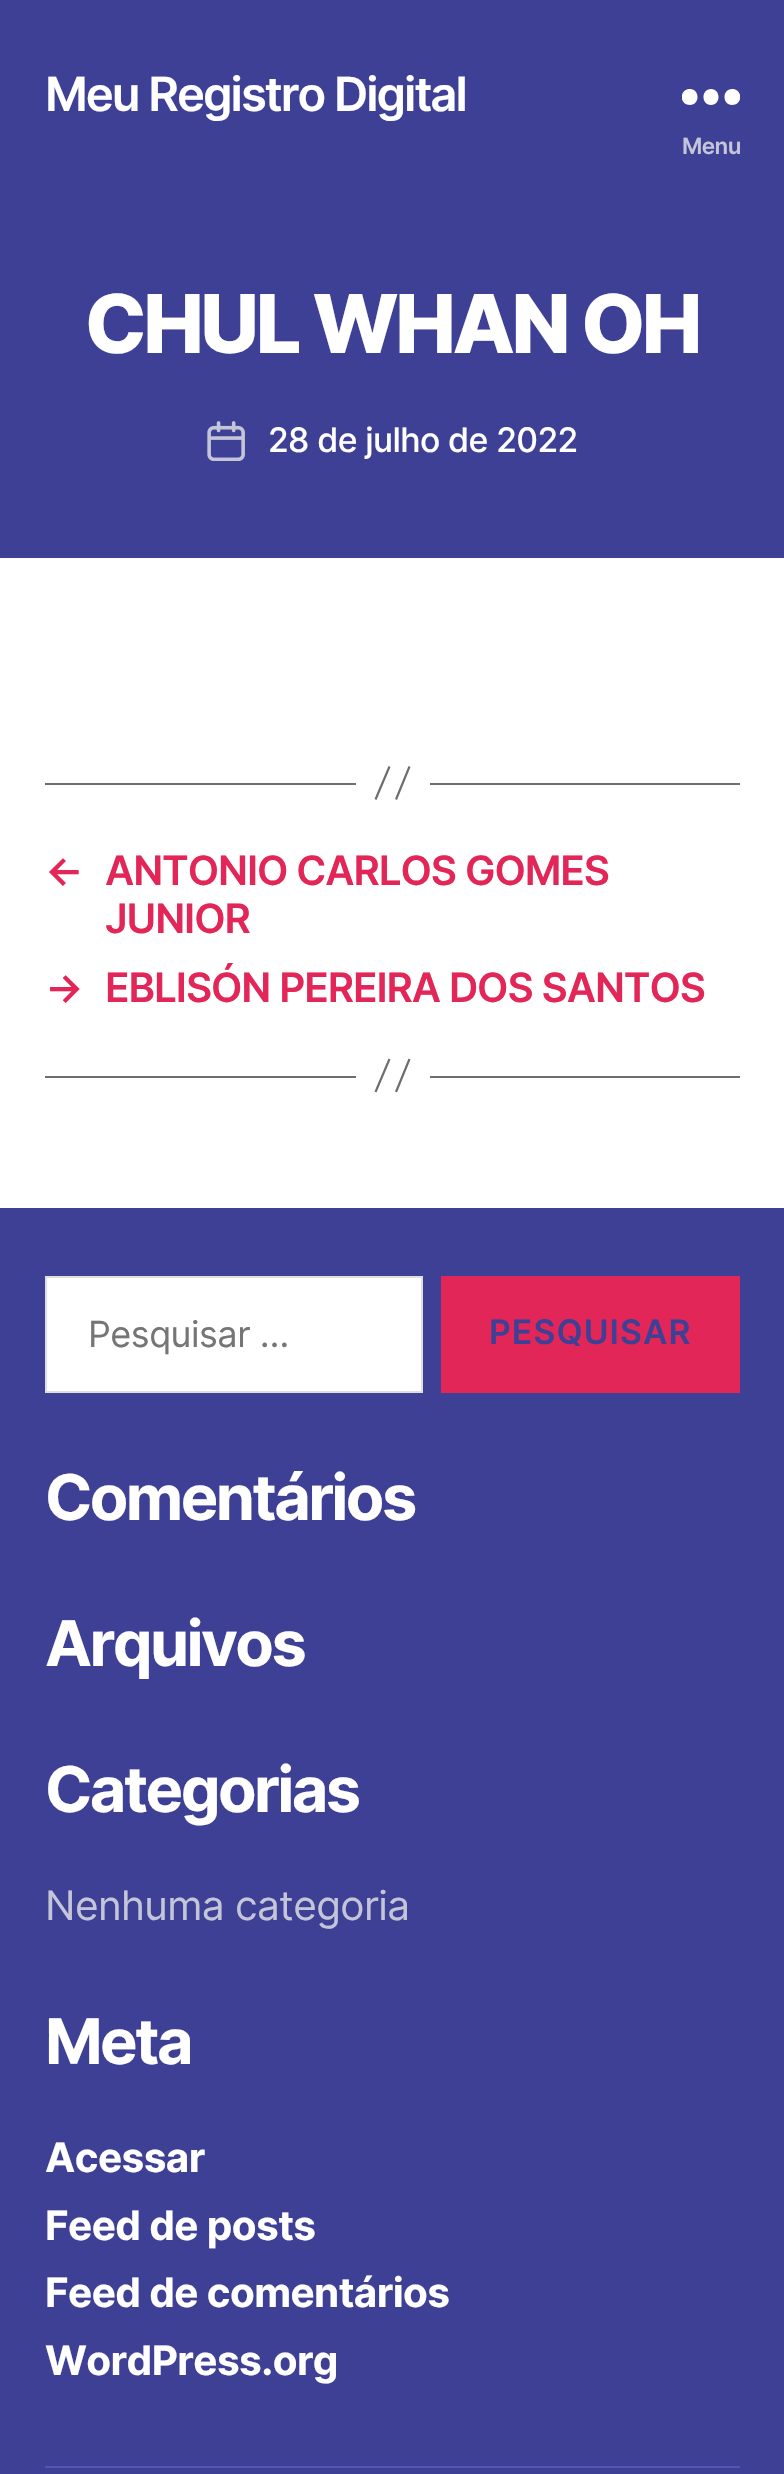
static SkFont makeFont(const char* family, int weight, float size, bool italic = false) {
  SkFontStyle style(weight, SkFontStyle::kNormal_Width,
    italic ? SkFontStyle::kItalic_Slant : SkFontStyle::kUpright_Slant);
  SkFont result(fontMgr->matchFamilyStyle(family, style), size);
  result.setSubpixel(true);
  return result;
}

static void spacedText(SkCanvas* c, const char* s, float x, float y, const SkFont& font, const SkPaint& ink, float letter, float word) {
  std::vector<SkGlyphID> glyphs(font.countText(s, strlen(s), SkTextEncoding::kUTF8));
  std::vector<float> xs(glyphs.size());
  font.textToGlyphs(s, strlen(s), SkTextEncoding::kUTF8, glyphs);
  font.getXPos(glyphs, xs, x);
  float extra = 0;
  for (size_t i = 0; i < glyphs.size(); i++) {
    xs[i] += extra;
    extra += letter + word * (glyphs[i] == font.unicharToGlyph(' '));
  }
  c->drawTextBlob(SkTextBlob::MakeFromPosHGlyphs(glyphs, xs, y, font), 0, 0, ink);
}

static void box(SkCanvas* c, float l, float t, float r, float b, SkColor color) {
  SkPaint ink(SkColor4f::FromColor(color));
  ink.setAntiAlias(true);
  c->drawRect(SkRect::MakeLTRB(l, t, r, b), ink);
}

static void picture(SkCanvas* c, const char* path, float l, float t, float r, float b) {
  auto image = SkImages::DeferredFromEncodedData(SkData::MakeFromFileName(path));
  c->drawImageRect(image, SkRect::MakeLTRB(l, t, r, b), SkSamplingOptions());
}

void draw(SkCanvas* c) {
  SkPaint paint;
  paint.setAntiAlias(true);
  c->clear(0xffffffff);
  box(c, 0, 0, 784, 558, 0xff3e4095);
  SkFont face1 = makeFont("Inter", 600, 47.25f);
  paint.setColor(0xffffffff);
  spacedText(c, "Meu Registro Digital", 45, 111, face1, paint, -2, 0);
  c->save();
  c->clipRect(SkRect::MakeLTRB(682, 88, 740, 106));
  c->drawPath(SkPathBuilder(SkPathFillType::kEvenOdd).moveTo(690, 105).cubicTo(679, 105, 679, 89, 690, 89).cubicTo(700, 89, 700, 105, 690, 105).close().moveTo(711, 105).cubicTo(701, 105, 701, 89, 711, 89).cubicTo(721, 89, 721, 105, 711, 105).close().moveTo(732, 105).cubicTo(722, 105, 722, 89, 732, 89).cubicTo(743, 89, 743, 105, 732, 105).close().detach(), paint);
  c->restore();
  SkFont face2 = makeFont("Inter", 600, 22.5f);
  paint.setColor(0xffc4c5d8);
  spacedText(c, "Menu", 682, 154, face2, paint, -0.6f, 0);
  SkFont face3 = makeFont("Inter", 800, 81);
  paint.setColor(0xffffffff);
  spacedText(c, "CHUL WHAN OH", 85, 353, face3, paint, -3.4f, 0);
  picture(c, "img_01.png", 207, 421, 245, 461);
  SkFont face4 = makeFont("Inter", 500, 33.75f);
  spacedText(c, "28 de julho de 2022", 268, 452, face4, paint, -0.6f, 0);
  box(c, 430, 783, 740, 785, 0xff6d6d6d);
  box(c, 45, 783, 356, 785, 0xff6d6d6d);
  paint.setColor(0xff6d6d6d);
  c->drawPath(SkPathBuilder().moveTo(388.5f, 766).lineTo(390.5f, 767).lineTo(376.5f, 800).lineTo(374.5f, 799).close().moveTo(408.5f, 766).lineTo(410.5f, 767).lineTo(397, 800).lineTo(395, 799).close().detach(), paint);
  SkFont face5 = makeFont("Inter", 600, 40.5f);
  paint.setColor(0xffe22658);
  spacedText(c, "←", 45, 885, face5, paint, -1.1f, 0);
  spacedText(c, "ANTONIO CARLOS GOMES", 105, 885, face5, paint, -1.1f, 0);
  spacedText(c, "JUNIOR", 105, 933, face5, paint, -1.1f, 0);
  spacedText(c, "→", 45, 1002, face5, paint, -1.1f, 0);
  spacedText(c, "EBLISÓN PEREIRA DOS SANTOS", 105, 1002, face5, paint, -1.1f, 0);
  box(c, 430, 1076, 740, 1078, 0xff6d6d6d);
  box(c, 45, 1076, 356, 1078, 0xff6d6d6d);
  paint.setColor(0xff6d6d6d);
  c->drawPath(SkPathBuilder().moveTo(388.5f, 1058.5f).lineTo(390.5f, 1059.5f).lineTo(376.5f, 1092.5f).lineTo(374.5f, 1091.5f).close().moveTo(408.5f, 1058.5f).lineTo(410.5f, 1059.5f).lineTo(397, 1092.5f).lineTo(395, 1091.5f).close().detach(), paint);
  box(c, 0, 1208, 784, 2474, 0xff3e4095);
  box(c, 45, 2466, 740, 2468, 0xff5254b6);
  paint.setColor(0xffffffff);
  c->drawRect(SkRect::MakeLTRB(46, 1277, 422, 1392), paint);
  paint.setStyle(SkPaint::kStroke_Style);
  paint.setStrokeWidth(2);
  paint.setColor(0xffdedfdf);
  c->drawRect(SkRect::MakeLTRB(46, 1277, 422, 1392), paint);
  SkFont face6 = makeFont("Inter", 400, 36);
  paint.setStyle(SkPaint::kFill_Style);
  paint.setColor(0xff757575);
  spacedText(c, "Pesquisar …", 88, 1347, face6, paint, -0.5f, 0);
  box(c, 441, 1276, 740, 1393, 0xffe22658);
  SkFont face7 = makeFont("Inter", 600, 33.75f);
  paint.setColor(0xff3e4095);
  spacedText(c, "PESQUISAR", 489, 1344, face7, paint, 1.1f, 0);
  SkFont face8 = makeFont("Inter", 700, 63);
  paint.setColor(0xffffffff);
  spacedText(c, "Comentários", 45, 1520, face8, paint, -2.6f, 0);
  spacedText(c, "Arquivos", 45, 1666, face8, paint, -2.6f, 0);
  spacedText(c, "Categorias", 45, 1812, face8, paint, -2.6f, 0);
  SkFont face9 = makeFont("Inter", 400, 40.5f);
  paint.setColor(0xffc4c5d8);
  spacedText(c, "Nenhuma categoria", 45, 1920, face9, paint, -0.6f, 0);
  paint.setColor(0xffffffff);
  spacedText(c, "Meta", 45, 2064, face8, paint, -2.6f, 0);
  SkFont face10 = makeFont("Inter", 700, 40.5f);
  spacedText(c, "Acessar", 45, 2172, face10, paint, -0.6f, 0);
  spacedText(c, "Feed de posts", 45, 2240, face10, paint, -0.6f, 0);
  spacedText(c, "Feed de comentários", 45, 2307, face10, paint, -0.6f, 0);
  spacedText(c, "WordPress.org", 45, 2375, face10, paint, -0.6f, 0);
}
